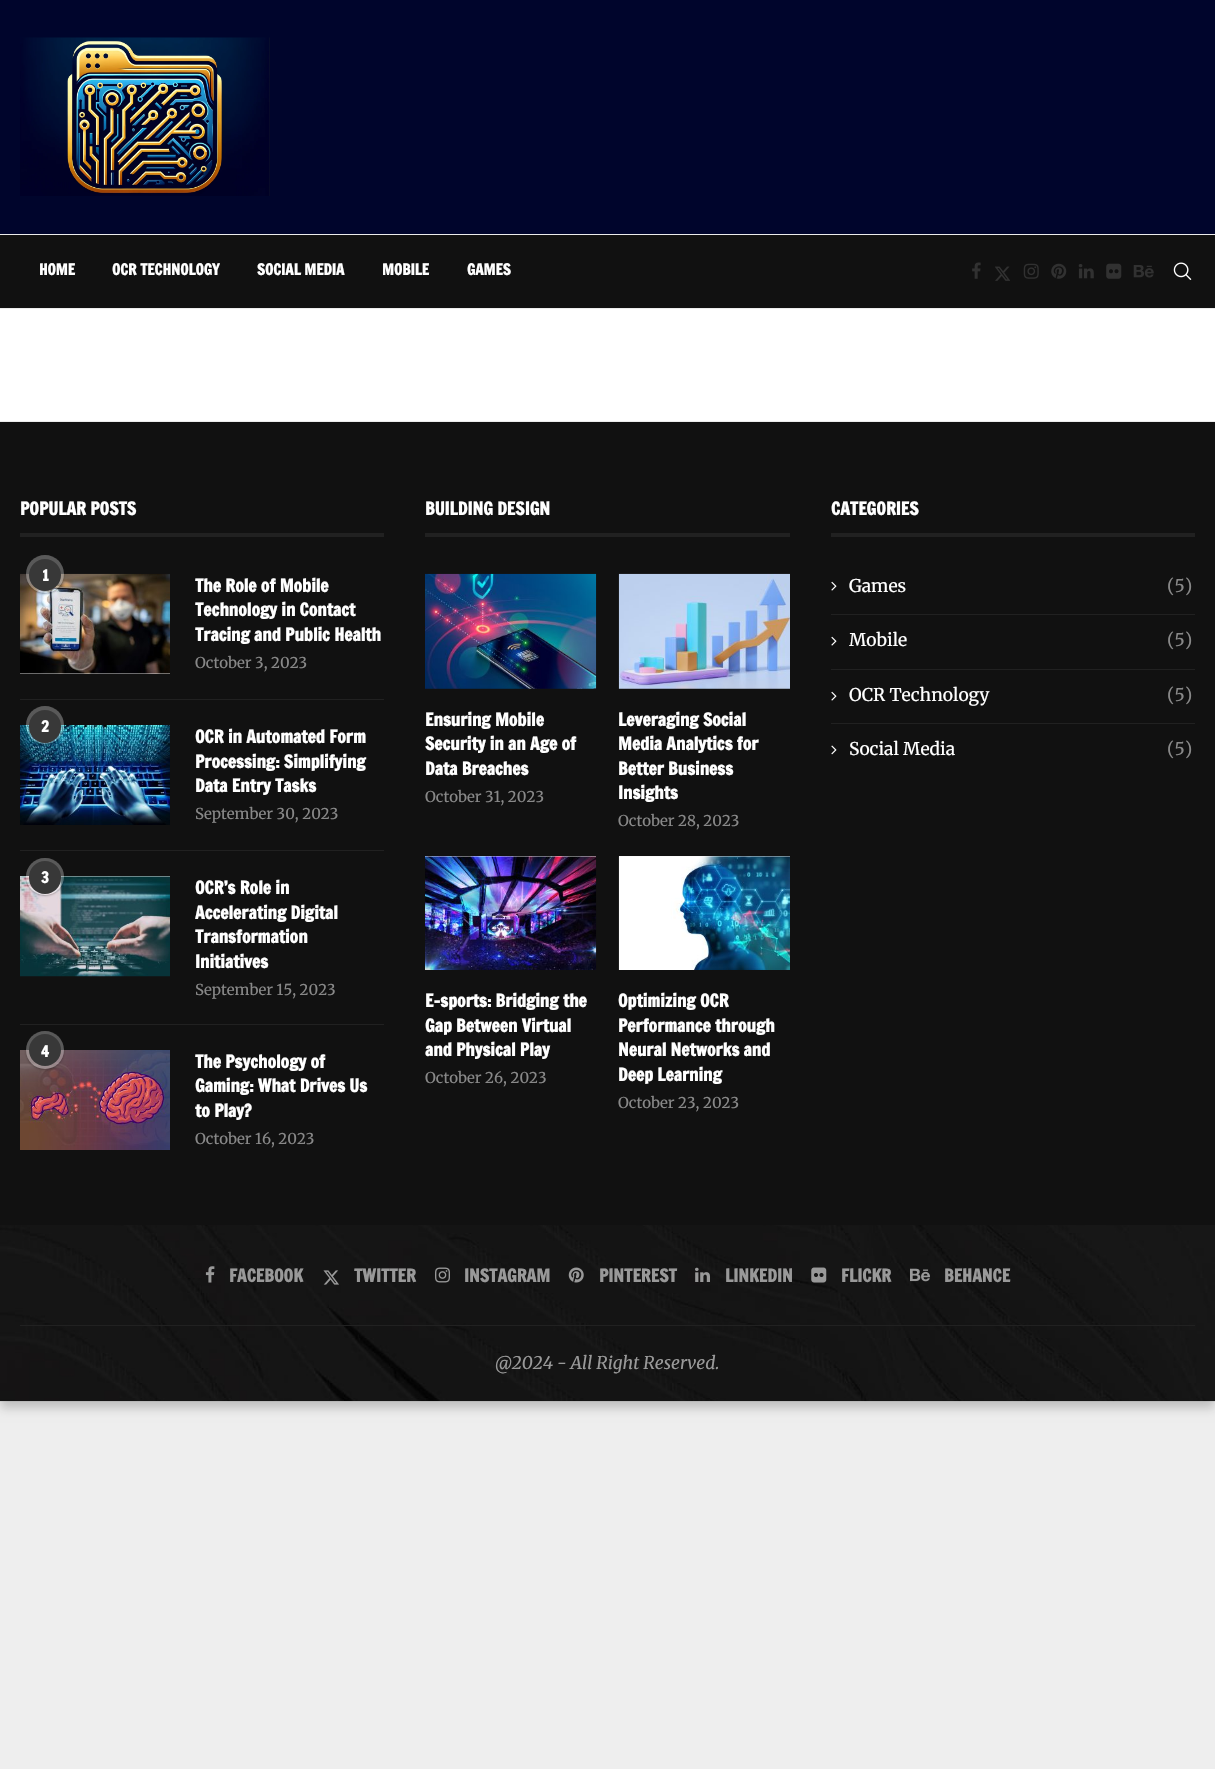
static SkFont makeFont(const char* family, int weight, float size, bool italic = false) {
  SkFontStyle style(weight, SkFontStyle::kNormal_Width,
    italic ? SkFontStyle::kItalic_Slant : SkFontStyle::kUpright_Slant);
  SkFont result(fontMgr->matchFamilyStyle(family, style), size);
  result.setSubpixel(true);
  return result;
}

static void text(SkCanvas* c, const char* s, float x, float y, const SkFont& font, SkColor color) {
  SkPaint ink(SkColor4f::FromColor(color));
  ink.setAntiAlias(true);
  c->drawString(s, x, y, font, ink);
}

static void box(SkCanvas* c, float l, float t, float r, float b, SkColor color) {
  SkPaint ink(SkColor4f::FromColor(color));
  ink.setAntiAlias(true);
  c->drawRect(SkRect::MakeLTRB(l, t, r, b), ink);
}

static void roundBox(SkCanvas* c, float l, float t, float r, float b, float radius, SkColor color) {
  SkPaint ink(SkColor4f::FromColor(color));
  ink.setAntiAlias(true);
  c->drawRoundRect(SkRect::MakeLTRB(l, t, r, b), radius, radius, ink);
}

static void picture(SkCanvas* c, const char* path, float l, float t, float r, float b) {
  auto image = SkImages::DeferredFromEncodedData(SkData::MakeFromFileName(path));
  c->drawImageRect(image, SkRect::MakeLTRB(l, t, r, b), SkSamplingOptions());
}

void draw(SkCanvas* c) {
  SkPaint paint;
  paint.setAntiAlias(true);
  c->clear(0xffeeeeee);
  paint.setColor(0x33000000);
  paint.setMaskFilter(SkMaskFilter::MakeBlur(kNormal_SkBlurStyle, 5));
  c->drawRect(SkRect::MakeLTRB(0, 6, 1215, 1408), paint);
  paint.setMaskFilter(nullptr);
  box(c, 0, 309, 1215, 421, 0xffffffff);
  box(c, 0, 0, 1215, 234, 0xff00052c);
  picture(c, "img_01.png", 20, 37, 270, 196);
  box(c, 0, 235, 1215, 308, 0xff111111);
  box(c, 0, 234, 1215, 235, 0xffececec);
  box(c, 0, 308, 1215, 309, 0xffececec);
  SkFont face1 = makeFont("Francois One", 700, 15);
  text(c, "HOME", 39, 275, face1, 0xffffffff);
  text(c, "OCR TECHNOLOGY", 112, 275, face1, 0xffffffff);
  text(c, "SOCIAL MEDIA", 257, 275, face1, 0xffffffff);
  text(c, "MOBILE", 382, 275, face1, 0xffffffff);
  text(c, "GAMES", 467, 275, face1, 0xffffffff);
  picture(c, "img_02.png", 972, 262, 981, 279);
  picture(c, "img_03.png", 995, 266, 1010, 281);
  picture(c, "img_04.png", 1023, 263, 1039, 279);
  picture(c, "img_05.png", 1051, 263, 1067, 279);
  picture(c, "img_06.png", 1078, 264, 1094, 279);
  picture(c, "img_07.png", 1106, 263, 1122, 279);
  picture(c, "img_08.png", 1133, 265, 1154, 278);
  picture(c, "img_09.png", 1173, 262, 1192, 280);
  box(c, 0, 422, 1215, 1225, 0xff111111);
  box(c, 0, 421, 1215, 422, 0xffececec);
  box(c, 20, 533, 384, 537, 0xff212121);
  SkFont face2 = makeFont("Francois One", 700, 17.5f);
  text(c, "POPULAR POSTS", 20, 515, face2, 0xffffffff);
  box(c, 20, 699, 384, 700, 0xff212121);
  box(c, 20, 673, 170, 674, 0xfff5f5f5);
  picture(c, "img_10.png", 20, 573, 170, 674);
  c->save();
  c->clipPath(SkPathBuilder(SkPathFillType::kEvenOdd).moveTo(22, 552).lineTo(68, 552).lineTo(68, 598).lineTo(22, 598).close().moveTo(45, 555).cubicTo(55.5f, 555, 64, 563.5f, 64, 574).cubicTo(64, 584.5f, 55.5f, 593, 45, 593).cubicTo(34.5f, 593, 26, 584.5f, 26, 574).cubicTo(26, 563.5f, 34.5f, 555, 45, 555).close().detach(), true);
  paint.setColor(0x40000000);
  paint.setMaskFilter(SkMaskFilter::MakeBlur(kNormal_SkBlurStyle, 1));
  c->drawRoundRect(SkRect::MakeLTRB(26, 556, 64, 594), 19, 19, paint);
  paint.setMaskFilter(nullptr);
  c->restore();
  paint.setColor(0x4dffffff);
  c->drawCircle(45, 574, 19, paint);
  paint.setColor(0xff383838);
  c->drawCircle(45, 575, 16, paint);
  text(c, "1", 42, 581, face1, 0xffffffff);
  text(c, "The Role of Mobile", 195, 592, face2, 0xffffffff);
  text(c, "Technology in Contact", 195, 616, face2, 0xffffffff);
  text(c, "Tracing and Public Health", 195, 641, face2, 0xffffffff);
  SkFont face3 = makeFont("Merriweather", 400, 15);
  text(c, "October 3, 2023", 195, 668, face3, 0xff888888);
  box(c, 20, 850, 384, 851, 0xff212121);
  picture(c, "img_11.png", 20, 725, 170, 825);
  c->save();
  c->clipPath(SkPathBuilder(SkPathFillType::kEvenOdd).moveTo(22, 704).lineTo(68, 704).lineTo(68, 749).lineTo(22, 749).close().moveTo(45, 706).cubicTo(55.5f, 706, 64, 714.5f, 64, 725).cubicTo(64, 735.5f, 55.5f, 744, 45, 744).cubicTo(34.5f, 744, 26, 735.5f, 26, 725).cubicTo(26, 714.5f, 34.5f, 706, 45, 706).close().detach(), true);
  paint.setColor(0x40000000);
  paint.setMaskFilter(SkMaskFilter::MakeBlur(kNormal_SkBlurStyle, 1));
  c->drawRoundRect(SkRect::MakeLTRB(26, 708, 64, 745), 18.5f, 18.5f, paint);
  paint.setMaskFilter(nullptr);
  c->restore();
  paint.setColor(0x4dffffff);
  c->drawCircle(45, 725, 19, paint);
  roundBox(c, 29, 710, 61, 743, 16, 0xff383838);
  text(c, "2", 41, 732, face1, 0xffffffff);
  text(c, "OCR in Automated Form", 195, 743, face2, 0xffffffff);
  text(c, "Processing: Simplifying", 195, 768, face2, 0xffffffff);
  text(c, "Data Entry Tasks", 195, 792, face2, 0xffffffff);
  text(c, "September 30, 2023", 195, 819, face3, 0xff888888);
  box(c, 20, 1024, 384, 1025, 0xff212121);
  box(c, 20, 876, 170, 877, 0xfff5f5f5);
  picture(c, "img_12.png", 20, 876, 170, 977);
  c->save();
  c->clipPath(SkPathBuilder(SkPathFillType::kEvenOdd).moveTo(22, 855).lineTo(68, 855).lineTo(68, 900).lineTo(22, 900).close().moveTo(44.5f, 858).lineTo(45.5f, 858).cubicTo(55.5f, 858, 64, 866.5f, 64, 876.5f).cubicTo(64, 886.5f, 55.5f, 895, 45.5f, 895).lineTo(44.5f, 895).cubicTo(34.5f, 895, 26, 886.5f, 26, 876.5f).cubicTo(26, 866.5f, 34.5f, 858, 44.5f, 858).close().detach(), true);
  paint.setColor(0x40000000);
  paint.setMaskFilter(SkMaskFilter::MakeBlur(kNormal_SkBlurStyle, 1));
  c->drawRoundRect(SkRect::MakeLTRB(26, 859, 64, 896), 18.5f, 18.5f, paint);
  paint.setMaskFilter(nullptr);
  c->restore();
  roundBox(c, 26, 858, 64, 895, 18.5f, 0x4dffffff);
  roundBox(c, 29, 861, 61, 894, 16, 0xff383838);
  text(c, "3", 41, 883, face1, 0xffffffff);
  text(c, "OCR’s Role in", 195, 894, face2, 0xffffffff);
  text(c, "Accelerating Digital", 195, 919, face2, 0xffffffff);
  text(c, "Transformation", 195, 943, face2, 0xffffffff);
  text(c, "Initiatives", 195, 968, face2, 0xffffffff);
  text(c, "September 15, 2023", 195, 995, face3, 0xff888888);
  picture(c, "img_13.png", 20, 1050, 170, 1150);
  c->save();
  c->clipPath(SkPathBuilder(SkPathFillType::kEvenOdd).moveTo(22, 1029).lineTo(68, 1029).lineTo(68, 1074).lineTo(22, 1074).close().moveTo(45, 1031).cubicTo(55.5f, 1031, 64, 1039.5f, 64, 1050).cubicTo(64, 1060.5f, 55.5f, 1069, 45, 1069).cubicTo(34.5f, 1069, 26, 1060.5f, 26, 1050).cubicTo(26, 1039.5f, 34.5f, 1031, 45, 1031).close().detach(), true);
  paint.setMaskFilter(SkMaskFilter::MakeBlur(kNormal_SkBlurStyle, 1));
  c->drawRoundRect(SkRect::MakeLTRB(26, 1033, 64, 1070), 18.5f, 18.5f, paint);
  paint.setMaskFilter(nullptr);
  c->restore();
  paint.setColor(0x4dffffff);
  c->drawCircle(45, 1050, 19, paint);
  paint.setColor(0xff383838);
  c->drawCircle(45, 1050, 16, paint);
  text(c, "4", 41, 1057, face1, 0xffffffff);
  text(c, "The Psychology of", 195, 1068, face2, 0xffffffff);
  text(c, "Gaming: What Drives Us", 195, 1092, face2, 0xffffffff);
  text(c, "to Play?", 195, 1117, face2, 0xffffffff);
  text(c, "October 16, 2023", 195, 1144, face3, 0xff888888);
  box(c, 425, 533, 790, 537, 0xff212121);
  text(c, "BUILDING DESIGN", 425, 515, face2, 0xffffffff);
  picture(c, "img_14.png", 425, 573, 597, 689);
  text(c, "Ensuring Mobile", 425, 726, face2, 0xffffffff);
  text(c, "Security in an Age of", 425, 750, face2, 0xffffffff);
  text(c, "Data Breaches", 425, 775, face2, 0xffffffff);
  text(c, "October 31, 2023", 425, 802, face3, 0xff888888);
  picture(c, "img_15.png", 618, 573, 790, 689);
  text(c, "Leveraging Social", 618, 726, face2, 0xffffffff);
  text(c, "Media Analytics for", 618, 750, face2, 0xffffffff);
  text(c, "Better Business", 618, 775, face2, 0xffffffff);
  text(c, "Insights", 618, 799, face2, 0xffffffff);
  text(c, "October 28, 2023", 618, 826, face3, 0xff888888);
  box(c, 425, 856, 596, 857, 0xfff5f5f5);
  picture(c, "img_16.png", 425, 856, 597, 970);
  text(c, "E-sports: Bridging the", 425, 1007, face2, 0xffffffff);
  text(c, "Gap Between Virtual", 425, 1032, face2, 0xffffffff);
  text(c, "and Physical Play", 425, 1056, face2, 0xffffffff);
  text(c, "October 26, 2023", 425, 1083, face3, 0xff888888);
  box(c, 619, 856, 790, 857, 0xfff5f5f5);
  picture(c, "img_17.png", 618, 856, 790, 970);
  text(c, "Optimizing OCR", 618, 1007, face2, 0xffffffff);
  text(c, "Performance through", 618, 1032, face2, 0xffffffff);
  text(c, "Neural Networks and", 618, 1056, face2, 0xffffffff);
  text(c, "Deep Learning", 618, 1081, face2, 0xffffffff);
  text(c, "October 23, 2023", 618, 1108, face3, 0xff888888);
  box(c, 831, 533, 1195, 537, 0xff212121);
  text(c, "CATEGORIES", 831, 515, face2, 0xffffffff);
  box(c, 831, 614, 1195, 615, 0xff212121);
  picture(c, "img_18.png", 831, 581, 837, 591);
  SkFont face4 = makeFont("Merriweather", 400, 17.5f);
  text(c, "Games", 849, 592, face4, 0xffffffff);
  text(c, "(5)", 1167, 592, face4, 0xff888888);
  box(c, 831, 669, 1195, 670, 0xff212121);
  picture(c, "img_18.png", 831, 636, 837, 646);
  text(c, "Mobile", 849, 646, face4, 0xffffffff);
  text(c, "(5)", 1167, 646, face4, 0xff888888);
  box(c, 831, 723, 1195, 724, 0xff212121);
  picture(c, "img_18.png", 831, 691, 837, 701);
  text(c, "OCR Technology", 849, 701, face4, 0xffffffff);
  text(c, "(5)", 1167, 701, face4, 0xff888888);
  picture(c, "img_19.png", 831, 745, 837, 755);
  text(c, "Social Media", 849, 755, face4, 0xffffffff);
  text(c, "(5)", 1167, 755, face4, 0xff888888);
  picture(c, "img_20.png", 0, 1225, 1215, 1402);
  box(c, 20, 1325, 1195, 1326, 0xff212121);
  picture(c, "img_21.png", 205, 1266, 215, 1283);
  text(c, "FACEBOOK", 229, 1282, face2, 0xff999999);
  picture(c, "img_22.png", 323, 1270, 339, 1285);
  text(c, "TWITTER", 354, 1282, face2, 0xff999999);
  picture(c, "img_23.png", 435, 1267, 450, 1283);
  text(c, "INSTAGRAM", 464, 1282, face2, 0xff999999);
  picture(c, "img_24.png", 568, 1267, 584, 1283);
  text(c, "PINTEREST", 599, 1282, face2, 0xff999999);
  picture(c, "img_25.png", 695, 1267, 710, 1282);
  text(c, "LINKEDIN", 725, 1282, face2, 0xff999999);
  picture(c, "img_26.png", 811, 1267, 827, 1283);
  text(c, "FLICKR", 841, 1282, face2, 0xff999999);
  picture(c, "img_27.png", 910, 1268, 930, 1282);
  text(c, "BEHANCE", 944, 1282, face2, 0xff999999);
  SkFont face5 = makeFont("Merriweather", 400, 17.5f, true);
  text(c, "@2024 - All Right Reserved.", 495, 1369, face5, 0xff999999);
}
